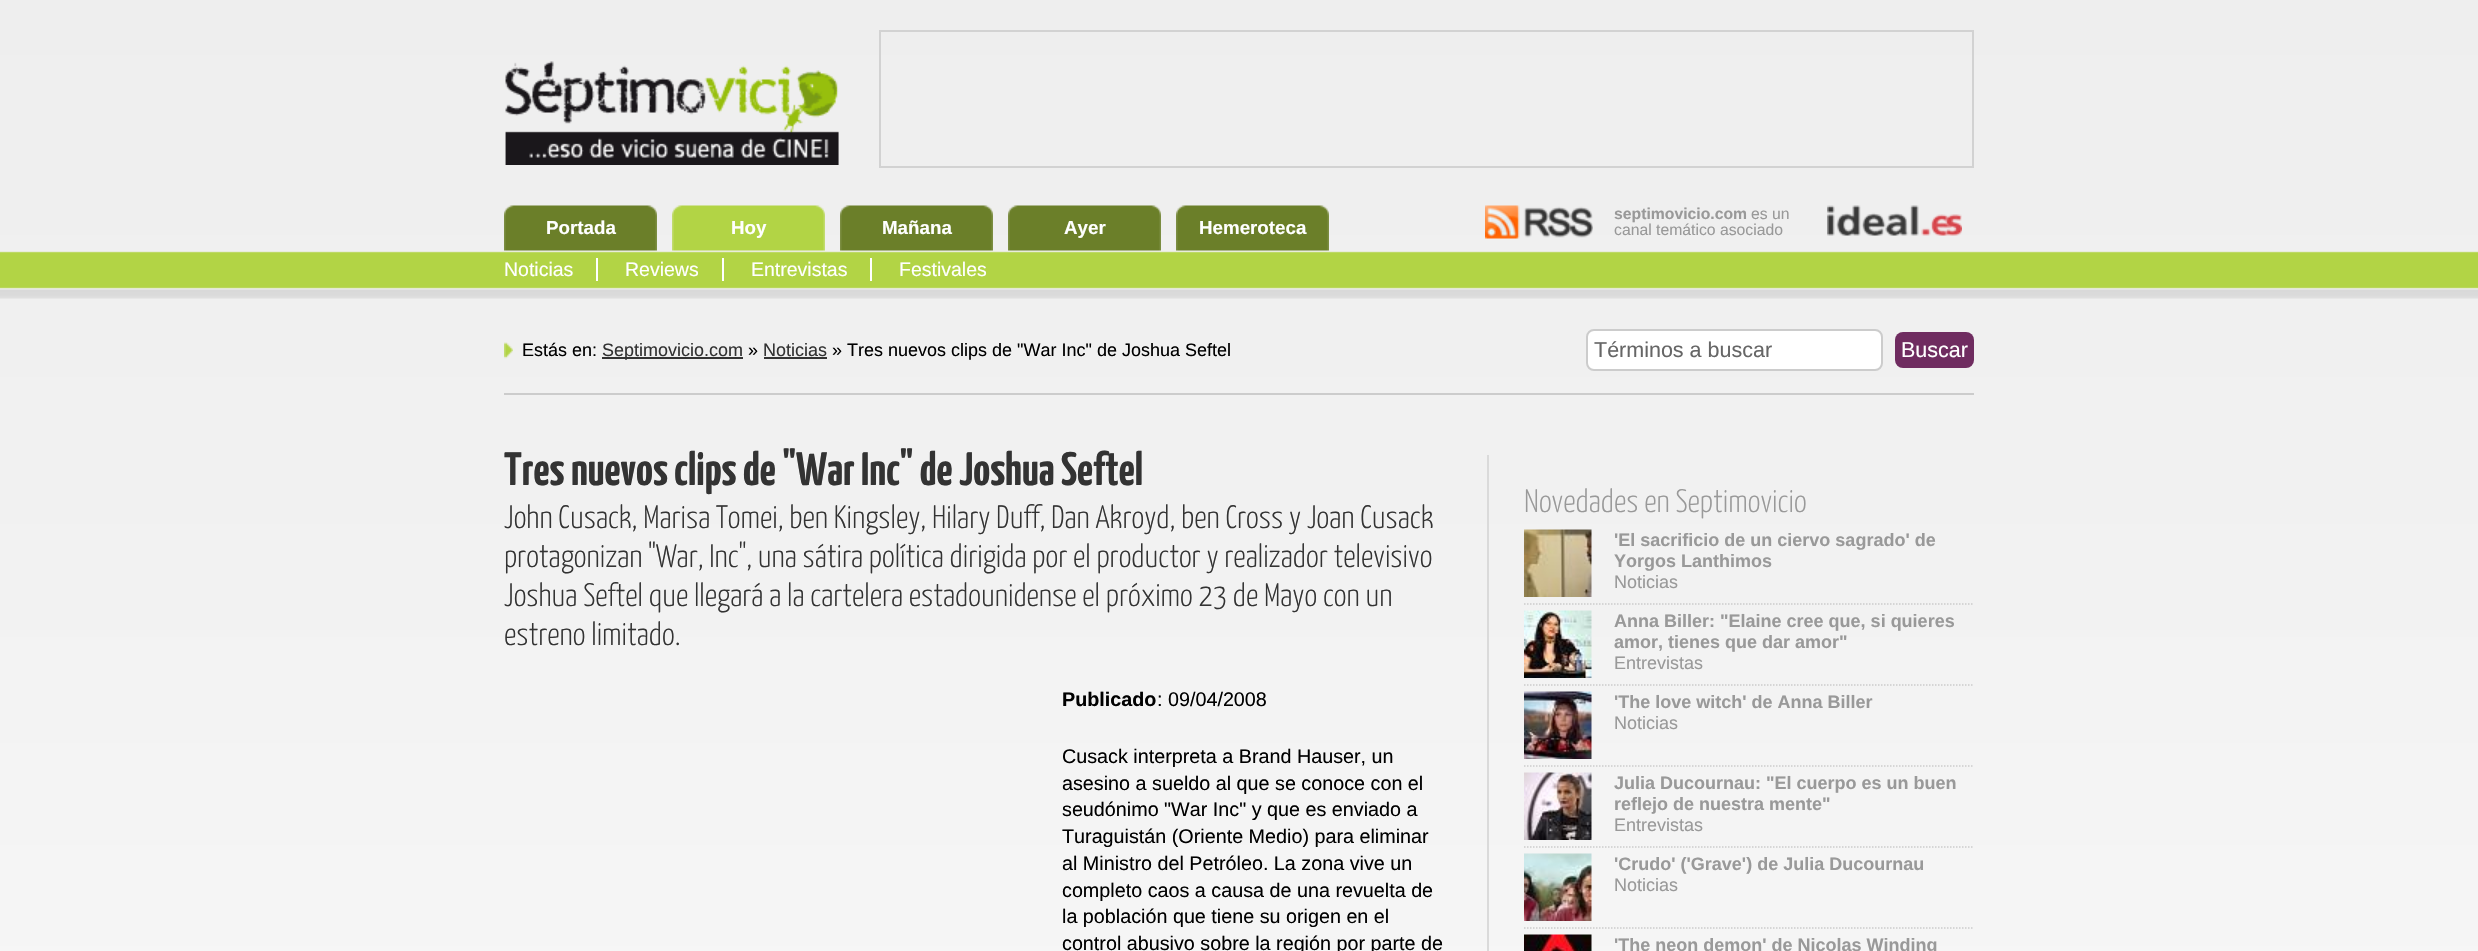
static SkFont makeFont(const char* family, int weight, float size, bool italic = false) {
  SkFontStyle style(weight, SkFontStyle::kNormal_Width,
    italic ? SkFontStyle::kItalic_Slant : SkFontStyle::kUpright_Slant);
  SkFont result(fontMgr->matchFamilyStyle(family, style), size);
  result.setSubpixel(true);
  return result;
}

static void text(SkCanvas* c, const char* s, float x, float y, const SkFont& font, SkColor color) {
  SkPaint ink(SkColor4f::FromColor(color));
  ink.setAntiAlias(true);
  c->drawString(s, x, y, font, ink);
}

static void box(SkCanvas* c, float l, float t, float r, float b, SkColor color) {
  SkPaint ink(SkColor4f::FromColor(color));
  ink.setAntiAlias(true);
  c->drawRect(SkRect::MakeLTRB(l, t, r, b), ink);
}

static void roundBox(SkCanvas* c, float l, float t, float r, float b, float radius, SkColor color) {
  SkPaint ink(SkColor4f::FromColor(color));
  ink.setAntiAlias(true);
  c->drawRoundRect(SkRect::MakeLTRB(l, t, r, b), radius, radius, ink);
}

static void picture(SkCanvas* c, const char* path, float l, float t, float r, float b) {
  auto image = SkImages::DeferredFromEncodedData(SkData::MakeFromFileName(path));
  c->drawImageRect(image, SkRect::MakeLTRB(l, t, r, b), SkSamplingOptions());
}

void draw(SkCanvas* c) {
  SkPaint paint;
  paint.setAntiAlias(true);
  c->clear(0xffffffff);
  picture(c, "img_01.png", 0, 0, 2478, 951);
  picture(c, "img_02.png", 505, 61, 839, 165);
  paint.setStyle(SkPaint::kStroke_Style);
  paint.setStrokeWidth(2);
  paint.setColor(0xffd2d2d2);
  c->drawRect(SkRect::MakeLTRB(880, 31, 1973, 167), paint);
  picture(c, "img_03.png", 504, 205, 657, 251);
  SkFont face1 = makeFont("Liberation Sans", 700, 18.75f);
  text(c, "Portada", 546, 234, face1, 0xffffffff);
  picture(c, "img_04.png", 672, 205, 825, 251);
  text(c, "Hoy", 731, 234, face1, 0xffffffff);
  picture(c, "img_05.png", 840, 205, 993, 251);
  text(c, "Mañana", 882, 234, face1, 0xffffffff);
  picture(c, "img_05.png", 1008, 205, 1161, 251);
  text(c, "Ayer", 1064, 234, face1, 0xffffffff);
  picture(c, "img_06.png", 1176, 205, 1329, 251);
  text(c, "Hemeroteca", 1199, 234, face1, 0xffffffff);
  picture(c, "img_07.png", 1485, 205, 1593, 239);
  SkFont face2 = makeFont("Liberation Sans", 700, 15.75f);
  text(c, "septimovicio.com", 1614, 219, face2, 0xff999999);
  SkFont face3 = makeFont("Liberation Sans", 400, 15.75f);
  text(c, "es un", 1751, 219, face3, 0xff999999);
  picture(c, "img_08.png", 1827, 205, 1962, 236);
  text(c, "canal temático asociado", 1614, 235, face3, 0xff999999);
  picture(c, "img_09.png", 0, 251, 2478, 299);
  SkFont face4 = makeFont("Liberation Sans", 400, 19.5f);
  text(c, "Noticias", 504, 276, face4, 0xffffffff);
  box(c, 596, 258, 598, 281, 0xffffffff);
  text(c, "Reviews", 625, 276, face4, 0xffffffff);
  box(c, 722, 258, 724, 281, 0xffffffff);
  text(c, "Entrevistas", 751, 276, face4, 0xffffffff);
  box(c, 870, 258, 872, 281, 0xffffffff);
  text(c, "Festivales", 899, 276, face4, 0xffffffff);
  box(c, 504, 393, 1974, 395, 0xffcccccc);
  picture(c, "img_10.png", 504, 342, 513, 359);
  SkFont face5 = makeFont("Liberation Sans", 400, 18);
  text(c, "Estás en:", 522, 356, face5, 0xff000000);
  box(c, 602, 357, 743, 359, 0xff333333);
  text(c, "Septimovicio.com", 602, 356, face5, 0xff333333);
  text(c, "»", 748, 356, face5, 0xff000000);
  text(c, "Noticias", 763, 356, face5, 0xff333333);
  box(c, 764, 357, 827, 359, 0xff333333);
  text(c, "» Tres nuevos clips de \"War Inc\" de Joshua Seftel", 832, 356, face5, 0xff000000);
  paint.setStyle(SkPaint::kFill_Style);
  paint.setColor(0xffffffff);
  c->drawRoundRect(SkRect::MakeLTRB(1587, 330, 1882, 370), 7, 7, paint);
  paint.setStyle(SkPaint::kStroke_Style);
  paint.setColor(0xffcccccc);
  c->drawRoundRect(SkRect::MakeLTRB(1587, 330, 1882, 370), 7, 7, paint);
  SkFont face6 = makeFont("Liberation Sans", 400, 21.5f);
  text(c, "Términos a buscar", 1594, 357, face6, 0xff666666);
  roundBox(c, 1895, 332, 1974, 368, 8, 0xff6f2c60);
  text(c, "Buscar", 1901, 357, face6, 0xffffffff);
  box(c, 1487, 455, 1489, 951, 0xffdadada);
  SkFont face7 = makeFont("Yanone Kaffeesatz", 700, 46.75f);
  text(c, "Tres nuevos clips de \"War Inc\" de Joshua Seftel", 504, 485, face7, 0xff333333);
  SkFont face8 = makeFont("Yanone Kaffeesatz", 300, 32.4f);
  text(c, "John Cusack, Marisa Tomei, ben Kingsley, Hilary Duff, Dan Akroyd, ben Cross y Joan Cusack", 504, 528, face8, 0xff333333);
  text(c, "protagonizan \"War, Inc\", una sátira política dirigida por el productor y realizador televisivo", 504, 567, face8, 0xff333333);
  text(c, "Joshua Seftel que llegará a la cartelera estadounidense el próximo 23 de Mayo con un", 504, 606, face8, 0xff333333);
  text(c, "estreno limitado.", 504, 645, face8, 0xff333333);
  SkFont face9 = makeFont("Liberation Sans", 700, 19.75f);
  text(c, "Publicado", 1062, 706, face9, 0xff000000);
  SkFont face10 = makeFont("Liberation Sans", 400, 19.75f);
  text(c, ": 09/04/2008", 1157, 706, face10, 0xff000000);
  text(c, "Cusack interpreta a Brand Hauser, un", 1062, 763, face10, 0xff000000);
  text(c, "asesino a sueldo al que se conoce con el", 1062, 790, face10, 0xff000000);
  text(c, "seudónimo \"War Inc\" y que es enviado a", 1062, 816, face10, 0xff000000);
  text(c, "Turaguistán (Oriente Medio) para eliminar", 1062, 843, face10, 0xff000000);
  text(c, "al Ministro del Petróleo. La zona vive un", 1062, 870, face10, 0xff000000);
  text(c, "completo caos a causa de una revuelta de", 1062, 897, face10, 0xff000000);
  text(c, "la población que tiene su origen en el", 1062, 923, face10, 0xff000000);
  text(c, "control abusivo sobre la región por parte de", 1062, 950, face10, 0xff000000);
  text(c, "Novedades en Septimovicio", 1524, 512, face8, 0xff999999);
  paint.setStrokeWidth(1.5f);
  paint.setPathEffect(SkDashPathEffect::Make({{1.5f, 1.5f}}, 0));
  c->drawPath(SkPathBuilder().moveTo(1524, 604).lineTo(1974, 604).detach(), paint);
  paint.setPathEffect(nullptr);
  picture(c, "img_11.png", 1524, 529, 1592, 597);
  SkFont face11 = makeFont("Liberation Sans", 700, 18);
  text(c, "'El sacrificio de un ciervo sagrado' de", 1614, 546, face11, 0xff999999);
  text(c, "Yorgos Lanthimos", 1614, 567, face11, 0xff999999);
  text(c, "Noticias", 1614, 588, face5, 0xff999999);
  paint.setPathEffect(SkDashPathEffect::Make({{1.5f, 1.5f}}, 0));
  c->drawPath(SkPathBuilder().moveTo(1524, 685).lineTo(1974, 685).detach(), paint);
  paint.setPathEffect(nullptr);
  picture(c, "img_12.png", 1524, 610, 1592, 678);
  text(c, "Anna Biller: \"Elaine cree que, si quieres", 1614, 627, face11, 0xff999999);
  text(c, "amor, tienes que dar amor\"", 1614, 648, face11, 0xff999999);
  text(c, "Entrevistas", 1614, 669, face5, 0xff999999);
  paint.setPathEffect(SkDashPathEffect::Make({{1.5f, 1.5f}}, 0));
  c->drawPath(SkPathBuilder().moveTo(1524, 766).lineTo(1974, 766).detach(), paint);
  paint.setPathEffect(nullptr);
  picture(c, "img_13.png", 1524, 691, 1592, 759);
  text(c, "'The love witch' de Anna Biller", 1614, 708, face11, 0xff999999);
  text(c, "Noticias", 1614, 729, face5, 0xff999999);
  paint.setPathEffect(SkDashPathEffect::Make({{1.5f, 1.5f}}, 0));
  c->drawPath(SkPathBuilder().moveTo(1524, 847).lineTo(1974, 847).detach(), paint);
  paint.setPathEffect(nullptr);
  picture(c, "img_14.png", 1524, 772, 1592, 840);
  text(c, "Julia Ducournau: \"El cuerpo es un buen", 1614, 789, face11, 0xff999999);
  text(c, "reflejo de nuestra mente\"", 1614, 810, face11, 0xff999999);
  text(c, "Entrevistas", 1614, 831, face5, 0xff999999);
  paint.setPathEffect(SkDashPathEffect::Make({{1.5f, 1.5f}}, 0));
  c->drawPath(SkPathBuilder().moveTo(1524, 928).lineTo(1974, 928).detach(), paint);
  paint.setPathEffect(nullptr);
  picture(c, "img_15.png", 1524, 853, 1592, 921);
  text(c, "'Crudo' ('Grave') de Julia Ducournau", 1614, 870, face11, 0xff999999);
  text(c, "Noticias", 1614, 891, face5, 0xff999999);
  picture(c, "img_16.png", 1524, 934, 1592, 951);
  text(c, "'The neon demon' de Nicolas Winding", 1614, 951, face11, 0xff999999);
}
